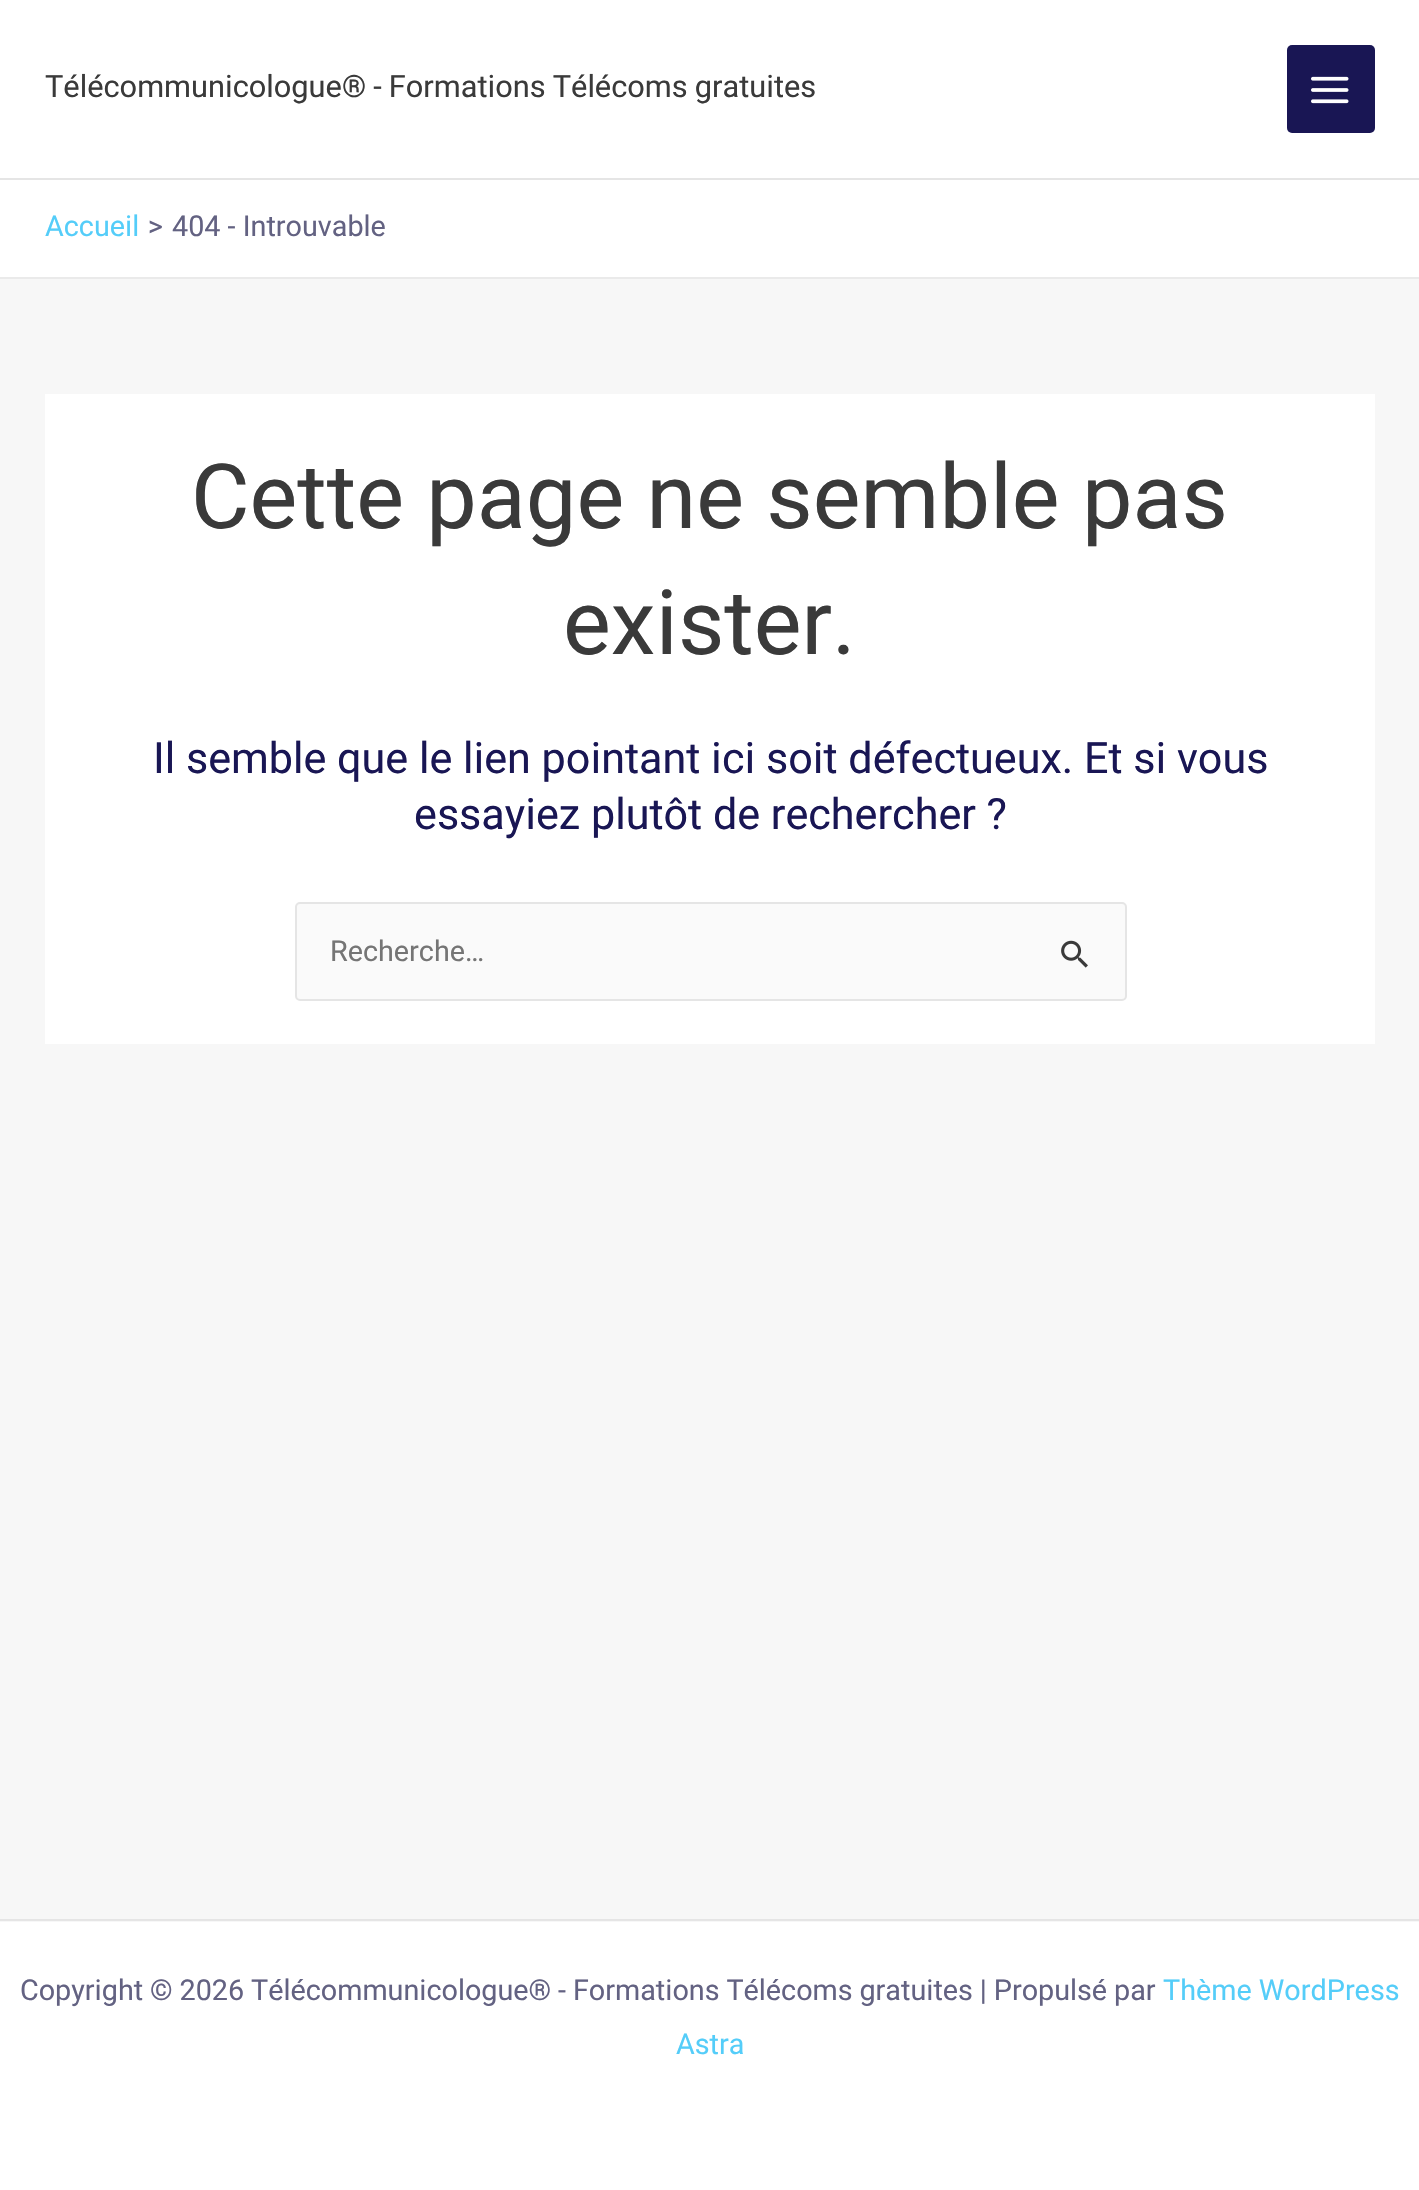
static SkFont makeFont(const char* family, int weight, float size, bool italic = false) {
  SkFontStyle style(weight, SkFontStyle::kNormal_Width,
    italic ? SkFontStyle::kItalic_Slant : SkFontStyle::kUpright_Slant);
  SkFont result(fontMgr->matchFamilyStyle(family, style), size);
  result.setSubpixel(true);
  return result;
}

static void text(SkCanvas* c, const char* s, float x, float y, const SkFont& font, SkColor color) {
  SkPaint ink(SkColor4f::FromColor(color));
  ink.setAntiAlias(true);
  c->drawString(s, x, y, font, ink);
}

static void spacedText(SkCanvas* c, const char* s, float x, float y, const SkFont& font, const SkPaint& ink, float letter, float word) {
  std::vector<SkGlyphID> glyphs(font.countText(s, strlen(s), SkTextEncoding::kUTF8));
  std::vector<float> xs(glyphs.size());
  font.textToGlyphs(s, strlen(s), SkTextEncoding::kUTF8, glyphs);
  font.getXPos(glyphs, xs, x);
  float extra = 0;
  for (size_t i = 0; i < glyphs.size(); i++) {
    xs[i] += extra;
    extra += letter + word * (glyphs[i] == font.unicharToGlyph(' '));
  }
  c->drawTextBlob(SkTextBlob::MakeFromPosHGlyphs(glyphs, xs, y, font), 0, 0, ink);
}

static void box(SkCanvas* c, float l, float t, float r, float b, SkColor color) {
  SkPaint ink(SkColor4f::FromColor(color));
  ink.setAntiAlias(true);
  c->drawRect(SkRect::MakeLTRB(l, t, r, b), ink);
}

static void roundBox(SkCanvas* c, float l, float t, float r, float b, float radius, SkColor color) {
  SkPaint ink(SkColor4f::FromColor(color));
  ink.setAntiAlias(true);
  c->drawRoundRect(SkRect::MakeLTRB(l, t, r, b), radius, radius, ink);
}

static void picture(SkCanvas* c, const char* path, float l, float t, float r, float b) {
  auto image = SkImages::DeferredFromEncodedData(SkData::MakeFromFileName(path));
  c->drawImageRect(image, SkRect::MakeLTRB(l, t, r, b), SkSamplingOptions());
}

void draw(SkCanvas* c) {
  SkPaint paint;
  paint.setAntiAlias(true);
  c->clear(0xfff7f7f7);
  box(c, 0, 0, 1419, 178, 0xffffffff);
  box(c, 0, 178, 1419, 180, 0xffe5e5e5);
  SkFont face1 = makeFont("Heebo", 400, 30.75f);
  paint.setColor(0xff3a3a3a);
  spacedText(c, "Télécommunicologue® - Formations Télécoms gratuites", 45, 97, face1, paint, 0, -0.5f);
  roundBox(c, 1287, 45, 1375, 133, 5, 0xff191654);
  picture(c, "img_01.png", 1311, 76, 1349, 104);
  box(c, 0, 180, 1419, 277, 0xffffffff);
  box(c, 0, 277, 1419, 279, 0xffeaeaea);
  SkFont face2 = makeFont("Heebo", 400, 28.75f);
  text(c, "Accueil", 45, 236, face2, 0xff54cdf9);
  text(c, ">", 148, 236, face2, 0xff636282);
  text(c, "404 - Introuvable", 172, 236, face2, 0xff636282);
  box(c, 45, 394, 1375, 1044, 0xffffffff);
  SkFont face3 = makeFont("Heebo", 400, 90);
  text(c, "Cette page ne semble pas", 191, 528, face3, 0xff3a3a3a);
  text(c, "exister.", 563, 654, face3, 0xff3a3a3a);
  SkFont face4 = makeFont("Heebo", 400, 43.1f);
  text(c, "Il semble que le lien pointant ici soit défectueux. Et si vous", 153, 773, face4, 0xff191654);
  text(c, "essayiez plutôt de rechercher ?", 414, 829, face4, 0xff191654);
  paint.setColor(0xfffafafa);
  c->drawRoundRect(SkRect::MakeLTRB(296, 903, 1126, 1000), 4, 4, paint);
  paint.setStyle(SkPaint::kStroke_Style);
  paint.setStrokeWidth(2);
  paint.setColor(0xffe5e5e5);
  c->drawRoundRect(SkRect::MakeLTRB(296, 903, 1126, 1000), 4, 4, paint);
  text(c, "Recherche…", 330, 961, face2, 0xff757575);
  picture(c, "img_02.png", 1061, 940, 1088, 968);
  box(c, 0, 1922, 1419, 2190, 0xffffffff);
  box(c, 0, 1919, 1419, 1921, 0xffe5e5e5);
  paint.setStyle(SkPaint::kFill_Style);
  paint.setColor(0xff636282);
  spacedText(c, "Copyright © 2026 Télécommunicologue® - Formations Télécoms gratuites | Propulsé par", 20, 2000, face2, paint, 0, -0.25f);
  text(c, "Thème WordPress", 1163, 2000, face2, 0xff54cdf9);
  text(c, "Astra", 676, 2054, face2, 0xff54cdf9);
}
